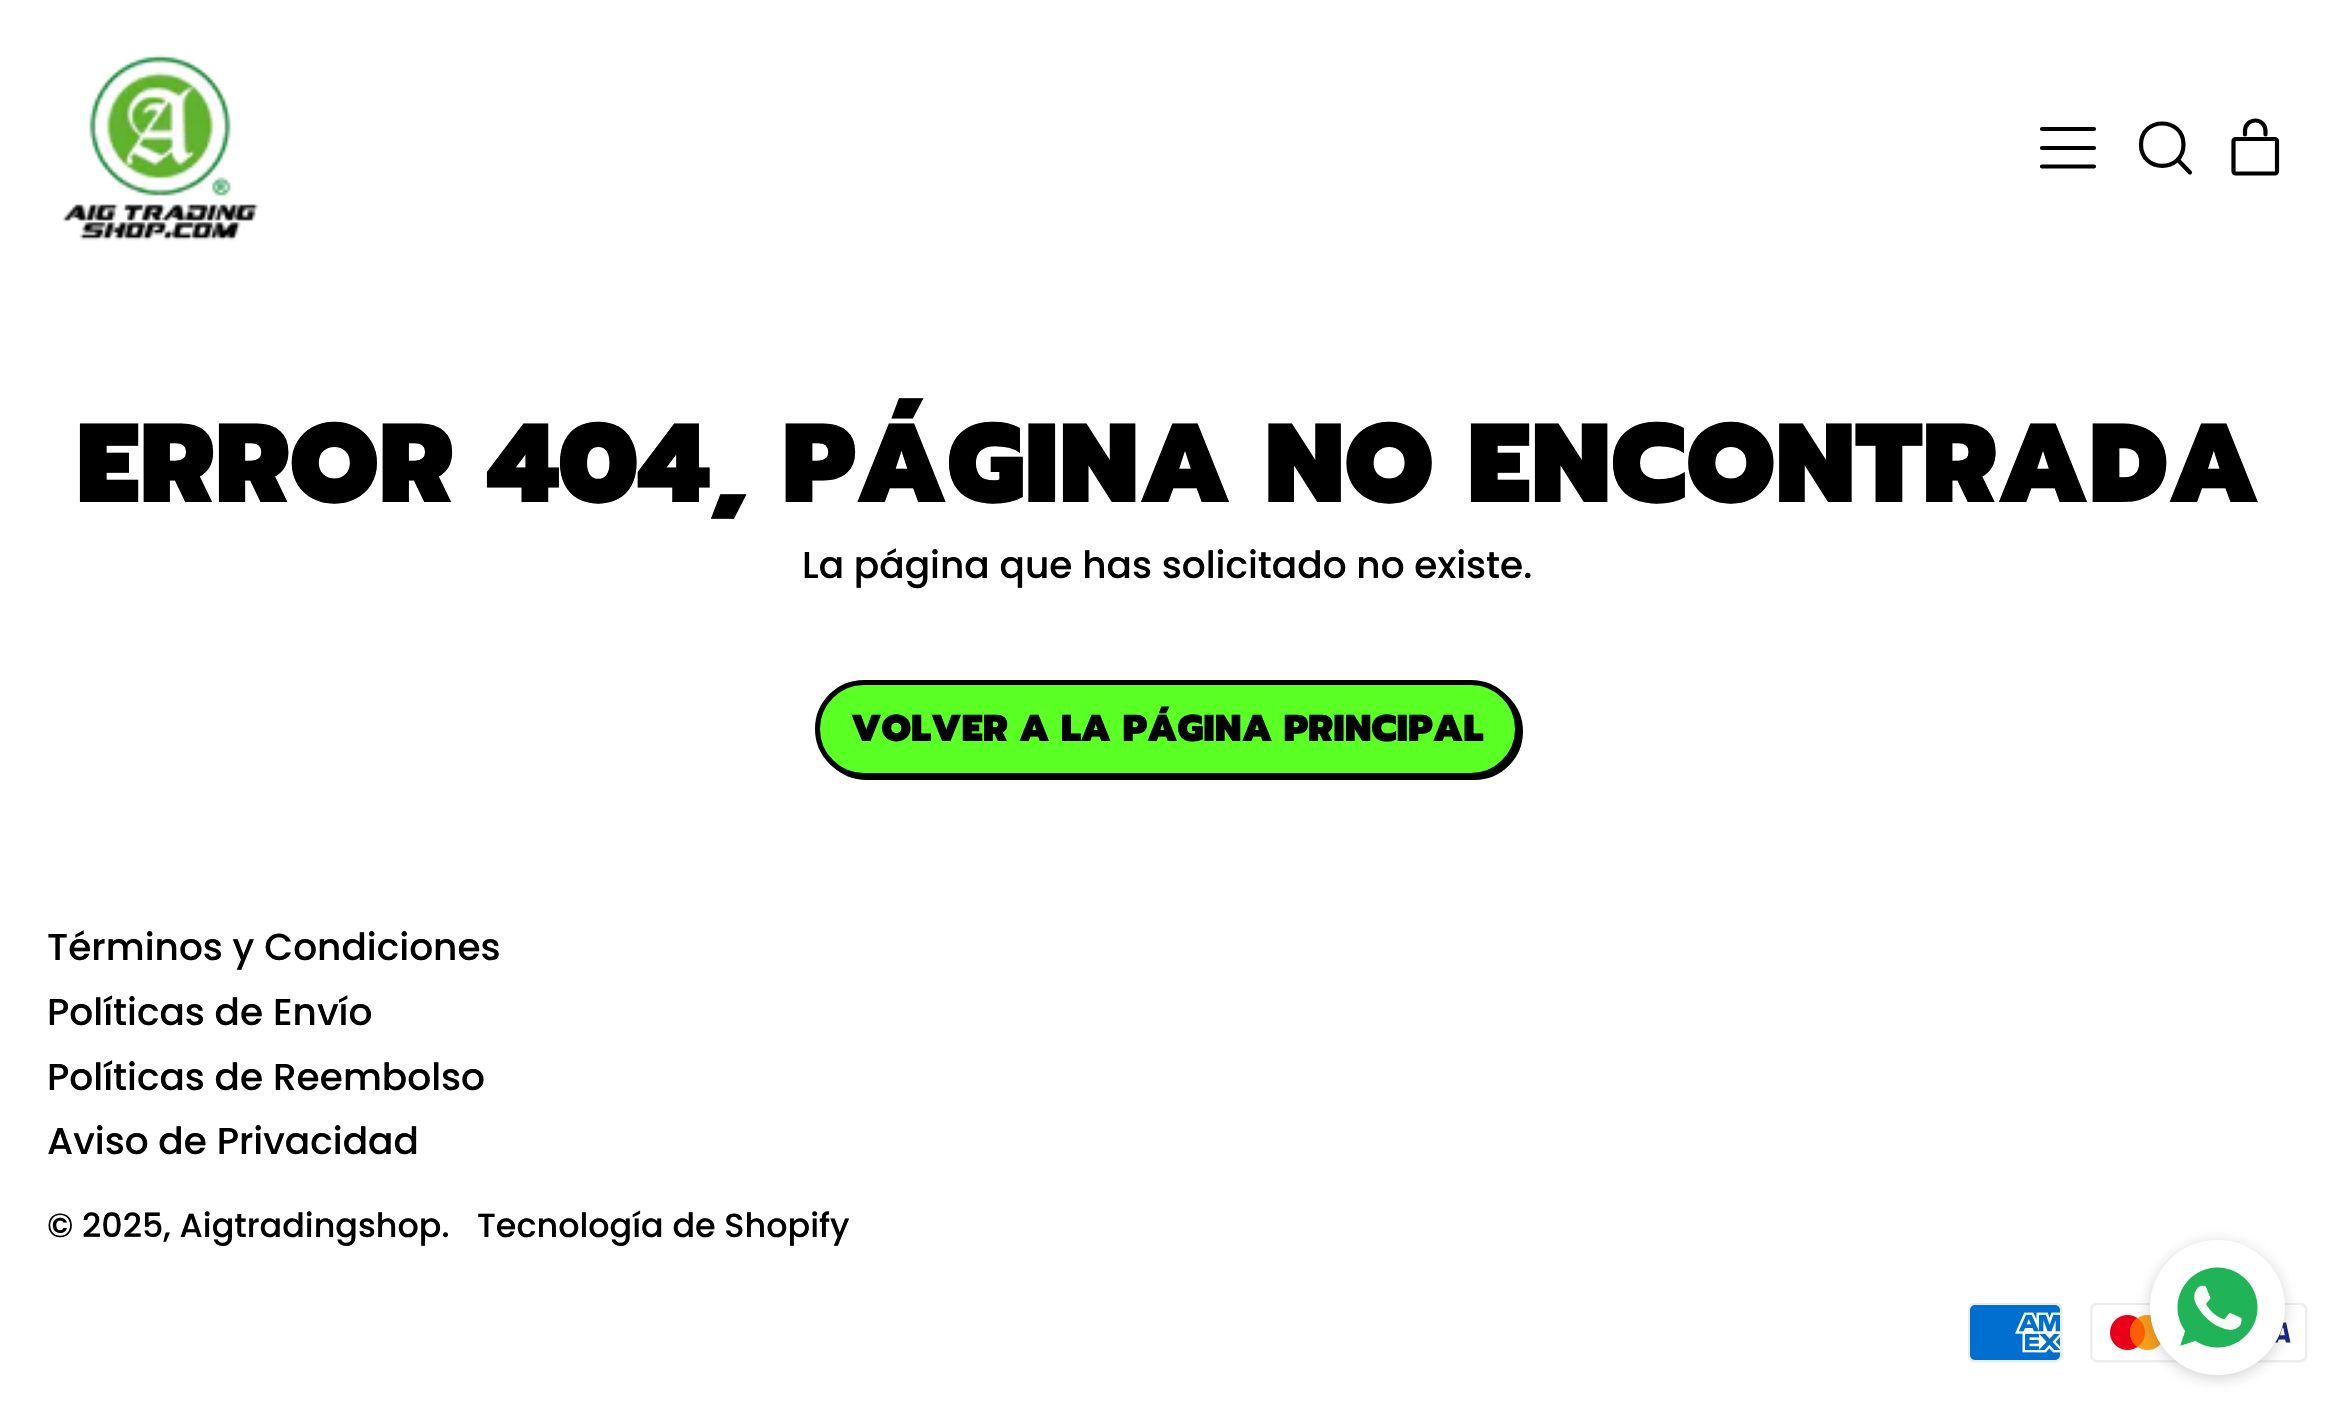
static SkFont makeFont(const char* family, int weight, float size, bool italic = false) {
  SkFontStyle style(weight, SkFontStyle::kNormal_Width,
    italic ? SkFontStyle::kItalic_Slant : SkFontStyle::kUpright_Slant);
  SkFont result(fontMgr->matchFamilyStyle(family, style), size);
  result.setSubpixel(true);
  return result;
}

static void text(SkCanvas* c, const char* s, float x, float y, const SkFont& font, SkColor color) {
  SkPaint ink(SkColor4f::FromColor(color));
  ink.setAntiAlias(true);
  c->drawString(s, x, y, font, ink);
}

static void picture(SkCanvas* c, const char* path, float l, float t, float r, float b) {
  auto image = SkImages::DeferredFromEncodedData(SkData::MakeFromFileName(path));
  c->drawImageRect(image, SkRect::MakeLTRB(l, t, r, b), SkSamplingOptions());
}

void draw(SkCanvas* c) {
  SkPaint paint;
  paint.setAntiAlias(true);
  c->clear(0xffffffff);
  picture(c, "img_01.png", 62, 54, 259, 241);
  paint.setStyle(SkPaint::kStroke_Style);
  paint.setStrokeWidth(4.2f);
  paint.setStrokeCap(SkPaint::kRound_Cap);
  paint.setStrokeJoin(SkPaint::kRound_Join);
  paint.setColor(0xff000000);
  c->drawPath(SkPathBuilder().moveTo(2094, 166.5f).lineTo(2042, 166.5f).moveTo(2094, 148).lineTo(2042, 148).moveTo(2094, 129).lineTo(2042, 129).detach(), paint);
  c->drawPath(SkPathBuilder().moveTo(2141, 144.5f).cubicTo(2141, 173, 2183.5f, 173, 2183.5f, 144.5f).cubicTo(2183.5f, 116.5f, 2141, 116.5f, 2141, 144.5f).close().moveTo(2190, 172.5f).lineTo(2177.5f, 159.5f).detach(), paint);
  c->drawPath(SkPathBuilder().moveTo(2275, 139).lineTo(2235.5f, 139).cubicTo(2234.5f, 139, 2233.5f, 140, 2233.5f, 141).lineTo(2233.5f, 171).cubicTo(2233.5f, 172.5f, 2234.5f, 173.5f, 2235.5f, 173.5f).lineTo(2275, 173.5f).cubicTo(2276, 173.5f, 2277, 172.5f, 2277, 171).lineTo(2277, 141).cubicTo(2277, 140, 2276, 139, 2275, 139).close().moveTo(2245, 134.5f).lineTo(2245, 131).cubicTo(2245, 125, 2249.5f, 120.5f, 2255.5f, 120.5f).cubicTo(2261, 120.5f, 2265.5f, 125, 2265.5f, 131).lineTo(2265.5f, 134.5f).detach(), paint);
  SkFont face1 = makeFont("Prompt", 900, 112.4f);
  text(c, "ERROR 404, PÁGINA NO ENCONTRADA", 76, 502, face1, 0xff000000);
  SkFont face2 = makeFont("Poppins", 500, 37.5f);
  text(c, "La página que has solicitado no existe.", 802, 578, face2, 0xff000000);
  paint.setStrokeWidth(5);
  paint.setStrokeCap(SkPaint::kButt_Cap);
  paint.setStrokeJoin(SkPaint::kMiter_Join);
  c->drawRoundRect(SkRect::MakeLTRB(820.5f, 685.5f, 1520.5f, 777.5f), 46, 46, paint);
  paint.setStyle(SkPaint::kFill_Style);
  paint.setColor(0xff5aff24);
  c->drawRoundRect(SkRect::MakeLTRB(817.5f, 682.5f, 1517.5f, 775.5f), 46.5f, 46.5f, paint);
  paint.setStyle(SkPaint::kStroke_Style);
  paint.setColor(0xff000000);
  c->drawRoundRect(SkRect::MakeLTRB(817.5f, 682.5f, 1517.5f, 775.5f), 46.5f, 46.5f, paint);
  SkFont face3 = makeFont("Prompt", 900, 37.5f);
  text(c, "VOLVER A LA PÁGINA PRINCIPAL", 851, 741, face3, 0xff000000);
  text(c, "Términos y Condiciones", 47, 960, face2, 0xff000000);
  text(c, "Políticas de Envío", 47, 1025, face2, 0xff000000);
  text(c, "Políticas de Reembolso", 47, 1090, face2, 0xff000000);
  text(c, "Aviso de Privacidad", 47, 1154, face2, 0xff000000);
  SkFont face4 = makeFont("Poppins", 500, 33.4f);
  text(c, "© 2025, Aigtradingshop.", 47, 1237, face4, 0xff000000);
  text(c, "Tecnología de Shopify", 477, 1237, face4, 0xff000000);
  picture(c, "img_02.png", 1968, 1303, 2063, 1363);
  picture(c, "img_03.png", 2090, 1303, 2179, 1363);
  picture(c, "img_04.png", 2256, 1303, 2308, 1363);
  paint.setStyle(SkPaint::kFill_Style);
  paint.setColor(0x331b1b1b);
  paint.setMaskFilter(SkMaskFilter::MakeBlur(kNormal_SkBlurStyle, 7.5f));
  c->drawRoundRect(SkRect::MakeLTRB(2150, 1243, 2285, 1378), 67.5f, 67.5f, paint);
  paint.setMaskFilter(nullptr);
  paint.setColor(0xffffffff);
  c->drawCircle(2217.5f, 1307.5f, 66, paint);
  paint.setStyle(SkPaint::kStroke_Style);
  paint.setStrokeWidth(3);
  c->drawCircle(2217.5f, 1307.5f, 66, paint);
  picture(c, "img_05.png", 2177, 1267, 2258, 1348);
}
